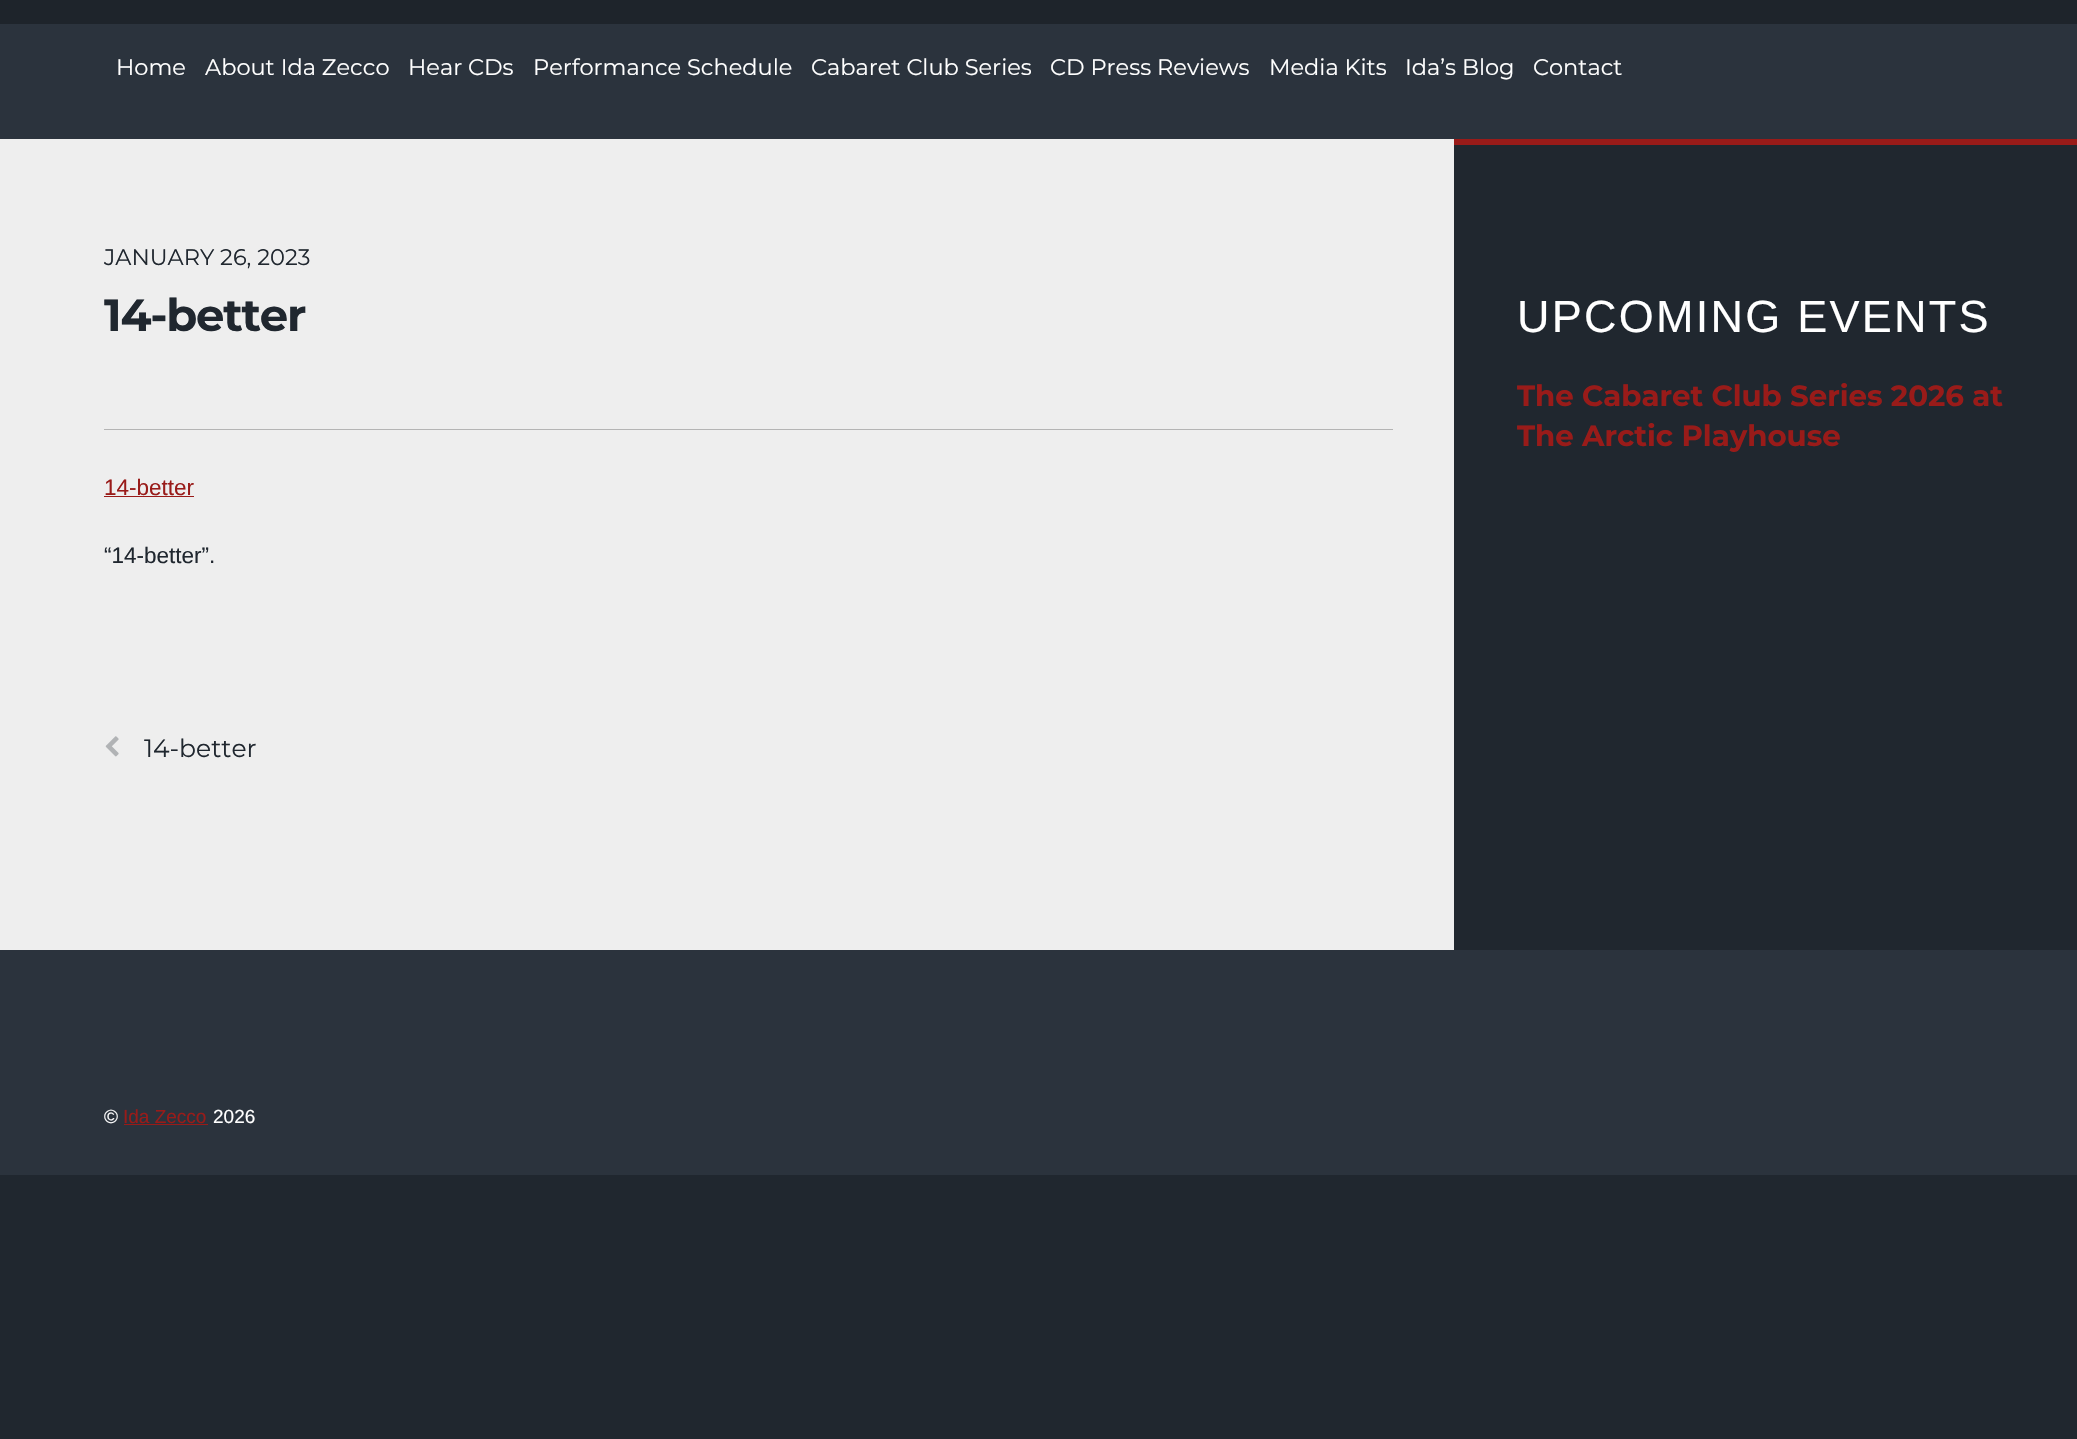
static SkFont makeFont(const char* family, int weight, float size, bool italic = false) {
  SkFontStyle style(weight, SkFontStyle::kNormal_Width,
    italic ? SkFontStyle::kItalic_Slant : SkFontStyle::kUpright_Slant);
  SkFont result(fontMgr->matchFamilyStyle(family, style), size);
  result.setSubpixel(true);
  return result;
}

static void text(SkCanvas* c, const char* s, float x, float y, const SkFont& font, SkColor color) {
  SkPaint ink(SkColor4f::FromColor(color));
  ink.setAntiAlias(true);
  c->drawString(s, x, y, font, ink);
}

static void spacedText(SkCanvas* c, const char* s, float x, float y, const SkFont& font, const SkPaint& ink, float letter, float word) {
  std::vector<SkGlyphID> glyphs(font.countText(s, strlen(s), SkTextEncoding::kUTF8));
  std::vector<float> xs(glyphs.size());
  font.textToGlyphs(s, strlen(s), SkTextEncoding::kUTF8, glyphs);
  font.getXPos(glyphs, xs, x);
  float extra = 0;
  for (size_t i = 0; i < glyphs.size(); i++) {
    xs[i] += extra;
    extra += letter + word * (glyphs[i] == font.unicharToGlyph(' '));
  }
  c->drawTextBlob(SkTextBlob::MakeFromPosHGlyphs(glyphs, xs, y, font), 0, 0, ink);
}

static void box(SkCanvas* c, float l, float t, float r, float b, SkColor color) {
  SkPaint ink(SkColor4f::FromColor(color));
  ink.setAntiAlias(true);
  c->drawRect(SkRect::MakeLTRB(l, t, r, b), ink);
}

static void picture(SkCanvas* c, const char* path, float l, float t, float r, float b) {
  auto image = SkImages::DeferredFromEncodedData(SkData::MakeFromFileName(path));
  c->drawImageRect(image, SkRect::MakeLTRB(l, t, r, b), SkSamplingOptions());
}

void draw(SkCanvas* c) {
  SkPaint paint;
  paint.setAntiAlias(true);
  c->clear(0xff20272f);
  box(c, 0, 24, 2077, 139, 0xff2b333d);
  box(c, 0, 0, 2077, 24, 0xff1e242b);
  SkFont face1 = makeFont("Montserrat", 400, 22.5f);
  text(c, "Home", 116, 75, face1, 0xffffffff);
  text(c, "About Ida Zecco", 205, 75, face1, 0xffffffff);
  text(c, "Hear CDs", 408, 75, face1, 0xffffffff);
  text(c, "Performance Schedule", 533, 75, face1, 0xffffffff);
  text(c, "Cabaret Club Series", 811, 75, face1, 0xffffffff);
  text(c, "CD Press Reviews", 1050, 75, face1, 0xffffffff);
  text(c, "Media Kits", 1269, 75, face1, 0xffffffff);
  text(c, "Ida’s Blog", 1405, 75, face1, 0xffffffff);
  text(c, "Contact", 1533, 75, face1, 0xffffffff);
  box(c, 1454, 139, 2077, 145, 0xff991b19);
  box(c, 0, 139, 1454, 950, 0xffeeeeee);
  text(c, "JANUARY 26, 2023", 104, 265, face1, 0xff20272f);
  SkFont face2 = makeFont("Montserrat", 700, 45);
  paint.setColor(0xff20272f);
  spacedText(c, "14-better", 104, 331, face2, paint, -1.25f, 0);
  box(c, 104, 429, 1393, 430, 0xffb4b4b4);
  SkFont face3 = makeFont("Liberation Sans", 400, 22.5f);
  text(c, "14-better", 104, 495, face3, 0xff991b19);
  box(c, 104, 496, 194, 497, 0xff991b19);
  text(c, "“14-better”.", 104, 563, face3, 0xff20272f);
  picture(c, "img_01.png", 105, 736, 119, 757);
  SkFont face4 = makeFont("Montserrat", 400, 25);
  text(c, "14-better", 144, 757, face4, 0xff20272f);
  SkFont face5 = makeFont("Liberation Sans", 400, 45);
  paint.setColor(0xffffffff);
  spacedText(c, "UPCOMING EVENTS", 1517, 332, face5, paint, 2.25f, 0);
  SkFont face6 = makeFont("Montserrat", 700, 29.25f);
  text(c, "The Cabaret Club Series 2026 at", 1517, 406, face6, 0xff991b19);
  text(c, "The Arctic Playhouse", 1517, 446, face6, 0xff991b19);
  box(c, 0, 950, 2077, 1175, 0xff2b333d);
  SkFont face7 = makeFont("Liberation Sans", 400, 19);
  text(c, "©", 104, 1123, face7, 0xffffffff);
  text(c, "Ida Zecco", 123, 1123, face7, 0xff991b19);
  box(c, 124, 1124, 208, 1125, 0xff991b19);
  text(c, "2026", 213, 1123, face7, 0xffffffff);
}
